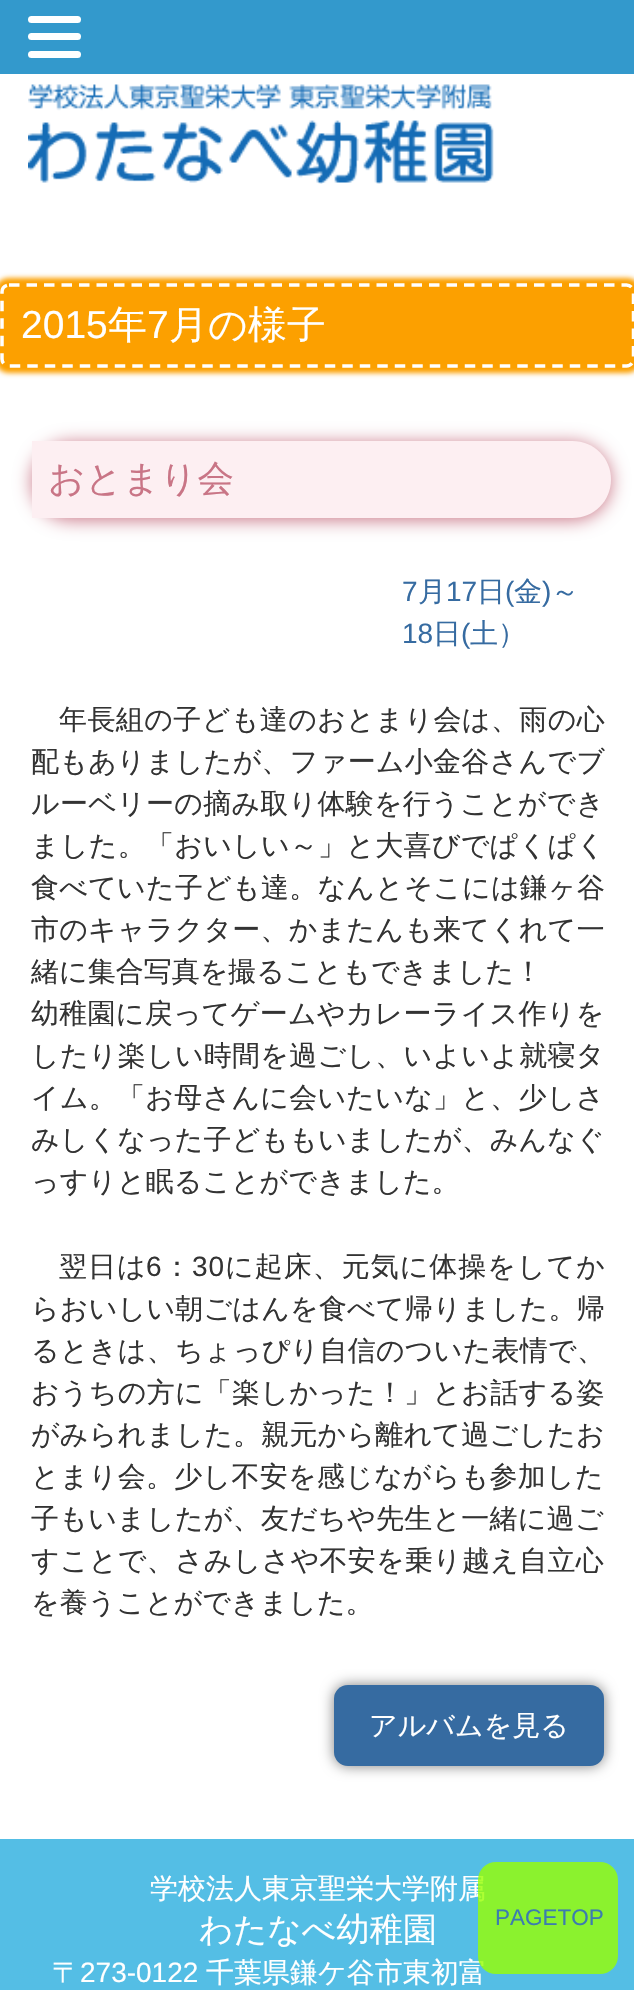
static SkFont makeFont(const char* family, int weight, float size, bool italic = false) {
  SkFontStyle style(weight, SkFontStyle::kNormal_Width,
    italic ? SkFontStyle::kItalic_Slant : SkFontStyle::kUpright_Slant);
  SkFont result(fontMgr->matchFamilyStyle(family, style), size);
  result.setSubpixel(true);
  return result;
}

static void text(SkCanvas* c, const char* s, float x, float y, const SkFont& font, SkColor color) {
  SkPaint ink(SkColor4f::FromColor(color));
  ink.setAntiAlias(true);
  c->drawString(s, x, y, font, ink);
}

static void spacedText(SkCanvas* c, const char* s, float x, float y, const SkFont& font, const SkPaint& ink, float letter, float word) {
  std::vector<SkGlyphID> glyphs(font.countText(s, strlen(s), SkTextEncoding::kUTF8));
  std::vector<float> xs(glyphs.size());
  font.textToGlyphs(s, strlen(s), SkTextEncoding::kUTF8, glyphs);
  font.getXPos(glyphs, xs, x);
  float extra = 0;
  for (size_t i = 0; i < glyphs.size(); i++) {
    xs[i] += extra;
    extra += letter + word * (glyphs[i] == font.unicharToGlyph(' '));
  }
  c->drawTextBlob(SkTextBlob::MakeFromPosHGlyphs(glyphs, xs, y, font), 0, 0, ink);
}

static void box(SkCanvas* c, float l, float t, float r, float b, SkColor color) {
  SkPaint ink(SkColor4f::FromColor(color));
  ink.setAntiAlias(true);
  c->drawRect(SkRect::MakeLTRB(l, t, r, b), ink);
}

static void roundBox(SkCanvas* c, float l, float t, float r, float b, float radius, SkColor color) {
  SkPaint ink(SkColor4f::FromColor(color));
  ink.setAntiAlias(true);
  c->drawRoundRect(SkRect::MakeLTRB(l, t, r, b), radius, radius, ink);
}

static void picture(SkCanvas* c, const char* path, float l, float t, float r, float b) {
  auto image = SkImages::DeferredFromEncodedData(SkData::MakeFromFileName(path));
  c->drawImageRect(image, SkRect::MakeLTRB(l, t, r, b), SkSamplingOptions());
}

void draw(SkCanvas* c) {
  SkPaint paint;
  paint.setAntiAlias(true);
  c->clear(0xffffffff);
  box(c, 0, 0, 634, 74, 0xff3399cc);
  roundBox(c, 28, 16, 81, 23, 3.5f, 0xffffffff);
  roundBox(c, 28, 33, 81, 40, 3.5f, 0xffffffff);
  roundBox(c, 28, 51, 81, 58, 3.5f, 0xffffffff);
  picture(c, "img_01.png", 28, 84, 494, 184);
  paint.setColor(0xfffca000);
  paint.setMaskFilter(SkMaskFilter::MakeBlur(kNormal_SkBlurStyle, 2.5f));
  c->drawRoundRect(SkRect::MakeLTRB(-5, 278, 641, 373), 14, 14, paint);
  paint.setMaskFilter(nullptr);
  roundBox(c, 0, 284, 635, 368, 9, 0xfffca000);
  paint.setStyle(SkPaint::kStroke_Style);
  paint.setStrokeWidth(3.5f);
  paint.setColor(0xffffffff);
  paint.setPathEffect(SkDashPathEffect::Make({{10.5f, 7}}, 0));
  c->drawPath(SkPathBuilder().moveTo(9, 285).lineTo(626.5f, 285).cubicTo(630.5f, 285, 633.5f, 288.5f, 633.5f, 292).lineTo(633.5f, 359).cubicTo(633.5f, 362.5f, 630.5f, 366, 626.5f, 366).lineTo(9, 366).cubicTo(5, 366, 2, 362.5f, 2, 359).lineTo(2, 292).cubicTo(2, 288.5f, 5, 285, 9, 285).close().detach(), paint);
  paint.setPathEffect(nullptr);
  SkFont face1 = makeFont("Liberation Sans", 400, 39);
  text(c, "2015", 21, 338, face1, 0xffffffff);
  SkFont face2 = makeFont("WenQuanYi Zen Hei", 500, 39);
  text(c, "年", 108, 338, face2, 0xffffffff);
  text(c, "7", 147, 338, face1, 0xffffffff);
  text(c, "月の様子", 169, 338, face2, 0xffffffff);
  paint.setStyle(SkPaint::kFill_Style);
  paint.setColor(0xffc97586);
  paint.setMaskFilter(SkMaskFilter::MakeBlur(kNormal_SkBlurStyle, 9));
  c->drawRoundRect(SkRect::MakeLTRB(32, 443, 611, 520), 38.5f, 38.5f, paint);
  paint.setMaskFilter(nullptr);
  paint.setColor(0xfffdeff2);
  c->drawPath(SkPathBuilder().moveTo(32, 441).lineTo(572.5f, 441).cubicTo(594, 441, 611, 458, 611, 479.5f).cubicTo(611, 501, 594, 518, 572.5f, 518).lineTo(32, 518).close().detach(), paint);
  SkFont face3 = makeFont("WenQuanYi Zen Hei", 500, 36.5f);
  text(c, "おとまり会", 48, 491, face3, 0xffc97586);
  SkFont face4 = makeFont("Liberation Sans", 400, 28);
  text(c, "7", 402, 601, face4, 0xff366ba1);
  SkFont face5 = makeFont("WenQuanYi Zen Hei", 500, 28);
  text(c, "月", 418, 601, face5, 0xff366ba1);
  text(c, "17", 446, 601, face4, 0xff366ba1);
  text(c, "日", 477, 601, face5, 0xff366ba1);
  text(c, "(", 505, 601, face4, 0xff366ba1);
  text(c, "金", 514, 601, face5, 0xff366ba1);
  text(c, ")", 542, 601, face4, 0xff366ba1);
  text(c, "～", 551, 601, face5, 0xff366ba1);
  text(c, "18", 402, 643, face4, 0xff366ba1);
  text(c, "日", 433, 643, face5, 0xff366ba1);
  text(c, "(", 461, 643, face4, 0xff366ba1);
  text(c, "土）", 470, 643, face5, 0xff366ba1);
  paint.setColor(0xff333333);
  spacedText(c, "年長組の子ども達のおとまり会は、雨の心", 59, 729, face5, paint, 0.4f, 0);
  spacedText(c, "配もありましたが、ファーム小金谷さんでブ", 31, 771, face5, paint, 0.25f, 0);
  spacedText(c, "ルーベリーの摘み取り体験を行うことができ", 31, 813, face5, paint, 0.25f, 0);
  spacedText(c, "ました。「おいしい～」と大喜びでぱくぱく", 31, 855, face5, paint, 0.25f, 0);
  spacedText(c, "食べていた子ども達。なんとそこには鎌ヶ谷", 31, 897, face5, paint, 0.25f, 0);
  spacedText(c, "市のキャラクター、かまたんも来てくれて一", 31, 939, face5, paint, 0.2f, 0);
  text(c, "緒に集合写真を撮ることもできました！", 31, 981, face5, 0xff333333);
  spacedText(c, "幼稚園に戻ってゲームやカレーライス作りを", 31, 1023, face5, paint, 0.25f, 0);
  spacedText(c, "したり楽しい時間を過ごし、いよいよ就寝タ", 31, 1065, face5, paint, 0.25f, 0);
  spacedText(c, "イム。「お母さんに会いたいな」と、少しさ", 31, 1107, face5, paint, 0.25f, 0);
  spacedText(c, "みしくなった子どももいましたが、みんなぐ", 31, 1149, face5, paint, 0.1f, 0);
  text(c, "っすりと眠ることができました。", 31, 1191, face5, 0xff333333);
  spacedText(c, "翌日は", 59, 1276, face5, paint, 1, 0);
  spacedText(c, "6", 146, 1276, face4, paint, 1, 0);
  spacedText(c, "：", 163, 1276, face5, paint, 1, 0);
  spacedText(c, "30", 192, 1276, face4, paint, 1, 0);
  spacedText(c, "に起床、元気に体操をしてか", 225, 1276, face5, paint, 1, 0);
  spacedText(c, "らおいしい朝ごはんを食べて帰りました。帰", 31, 1318, face5, paint, 0.2f, 0);
  spacedText(c, "るときは、ちょっぴり自信のついた表情で、", 31, 1360, face5, paint, 0.25f, 0);
  spacedText(c, "おうちの方に「楽しかった！」とお話する姿", 31, 1402, face5, paint, 0.25f, 0);
  spacedText(c, "がみられました。親元から離れて過ごしたお", 31, 1444, face5, paint, 0.2f, 0);
  spacedText(c, "とまり会。少し不安を感じながらも参加した", 31, 1486, face5, paint, 0.25f, 0);
  spacedText(c, "子もいましたが、友だちや先生と一緒に過ご", 31, 1528, face5, paint, 0.25f, 0);
  spacedText(c, "すことで、さみしさや不安を乗り越え自立心", 31, 1570, face5, paint, 0.25f, 0);
  text(c, "を養うことができました。", 31, 1612, face5, 0xff333333);
  paint.setColor(0x80000000);
  paint.setMaskFilter(SkMaskFilter::MakeBlur(kNormal_SkBlurStyle, 7));
  c->drawRoundRect(SkRect::MakeLTRB(334, 1685, 604, 1766), 14, 14, paint);
  paint.setMaskFilter(nullptr);
  roundBox(c, 334, 1685, 604, 1766, 14, 0xff366ba1);
  text(c, "アルバムを見る", 369, 1735, face5, 0xffffffff);
  box(c, 0, 1839, 634, 1990, 0xff54bee5);
  text(c, "学校法人東京聖栄大学附属", 150, 1898, face5, 0xffffffff);
  SkFont face6 = makeFont("WenQuanYi Zen Hei", 500, 33.5f);
  text(c, "わたなべ幼稚園", 199, 1941, face6, 0xffffffff);
  text(c, "〒", 52, 1982, face5, 0xffffffff);
  text(c, "273-0122", 80, 1982, face4, 0xffffffff);
  text(c, "千葉県鎌ケ谷市東初富", 206, 1982, face5, 0xffffffff);
  roundBox(c, 478, 1862, 618, 1974, 18, 0xcc99ff00);
  SkFont face7 = makeFont("Liberation Sans", 400, 22.5f);
  text(c, "PAGETOP", 495, 1925, face7, 0xff3c7caf);
}
